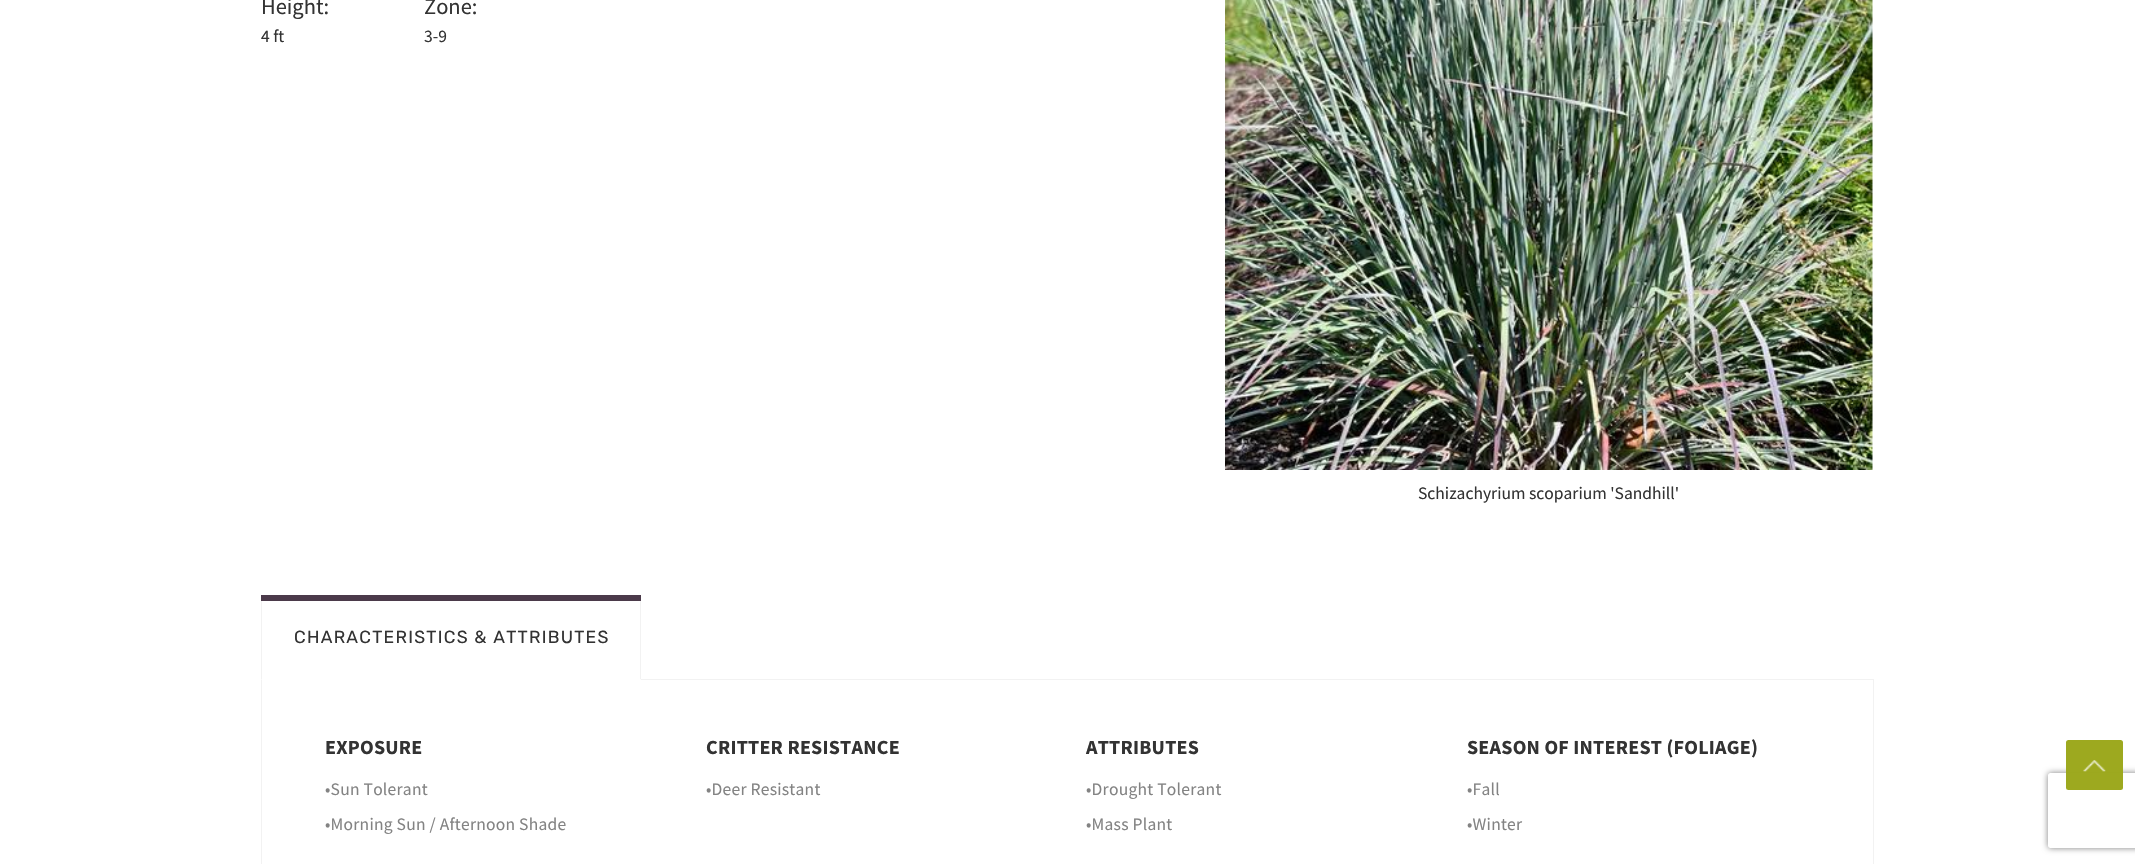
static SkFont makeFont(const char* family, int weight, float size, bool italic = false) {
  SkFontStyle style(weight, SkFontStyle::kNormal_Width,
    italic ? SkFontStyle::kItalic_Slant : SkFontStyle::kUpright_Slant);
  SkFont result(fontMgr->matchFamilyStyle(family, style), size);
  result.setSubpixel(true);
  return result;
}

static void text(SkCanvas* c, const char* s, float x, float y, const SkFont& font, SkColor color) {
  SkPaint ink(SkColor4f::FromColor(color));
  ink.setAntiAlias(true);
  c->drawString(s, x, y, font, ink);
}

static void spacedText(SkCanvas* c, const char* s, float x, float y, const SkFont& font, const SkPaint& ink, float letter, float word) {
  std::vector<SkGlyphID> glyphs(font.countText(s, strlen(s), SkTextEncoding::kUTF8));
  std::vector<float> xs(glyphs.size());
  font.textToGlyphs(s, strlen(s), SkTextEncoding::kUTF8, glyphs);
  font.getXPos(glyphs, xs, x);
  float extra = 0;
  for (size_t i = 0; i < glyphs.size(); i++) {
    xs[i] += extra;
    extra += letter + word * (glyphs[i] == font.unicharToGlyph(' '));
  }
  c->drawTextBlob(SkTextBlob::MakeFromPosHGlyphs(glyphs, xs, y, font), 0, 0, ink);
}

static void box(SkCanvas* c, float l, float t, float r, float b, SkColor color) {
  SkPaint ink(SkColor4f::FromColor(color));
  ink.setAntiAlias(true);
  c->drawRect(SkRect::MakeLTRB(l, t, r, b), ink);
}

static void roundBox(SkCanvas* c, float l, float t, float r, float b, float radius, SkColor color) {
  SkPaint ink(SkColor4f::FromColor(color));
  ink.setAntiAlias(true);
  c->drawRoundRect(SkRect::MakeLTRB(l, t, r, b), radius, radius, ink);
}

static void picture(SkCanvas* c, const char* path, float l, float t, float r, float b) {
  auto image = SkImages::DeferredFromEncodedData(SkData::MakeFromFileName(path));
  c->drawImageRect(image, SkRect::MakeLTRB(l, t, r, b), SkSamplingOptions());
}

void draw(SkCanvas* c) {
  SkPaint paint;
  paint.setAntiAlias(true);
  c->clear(0xffffffff);
  SkFont face1 = makeFont("Source Sans Pro", 400, 22.5f);
  text(c, "Height:", 261, 14, face1, 0xff333333);
  SkFont face2 = makeFont("Source Sans Pro", 400, 17.5f);
  text(c, "4 ft", 261, 42, face2, 0xff333333);
  text(c, "Zone:", 424, 14, face1, 0xff333333);
  text(c, "3-9", 424, 42, face2, 0xff333333);
  picture(c, "img_01.png", 1225, 0, 1873, 470);
  text(c, "Schizachyrium scoparium 'Sandhill'", 1418, 499, face2, 0xff333333);
  box(c, 641, 679, 1874, 680, 0xfff2f2f2);
  paint.setColor(0xfff2f2f2);
  c->drawPath(SkPathBuilder().moveTo(640, 596).lineTo(641, 599).lineTo(641, 680).lineTo(640, 679).lineTo(640, 599).lineTo(639, 597).close().detach(), paint);
  paint.setColor(0xffffffff);
  c->drawPath(SkPathBuilder().moveTo(261, 680).lineTo(641, 680).lineTo(640, 679).lineTo(262, 679).close().detach(), paint);
  paint.setColor(0xfff2f2f2);
  c->drawPath(SkPathBuilder().moveTo(261, 680).lineTo(261, 598).lineTo(262, 596).lineTo(263, 597).lineTo(262, 599).lineTo(262, 679).close().detach(), paint);
  box(c, 261, 595, 641, 601, 0xff4b3a4a);
  SkFont face3 = makeFont("Rubik", 400, 17.5f);
  paint.setColor(0xff333333);
  spacedText(c, "CHARACTERISTICS & ATTRIBUTES", 294, 643, face3, paint, 1.25f, 0);
  box(c, 1873, 680, 1874, 864, 0xfff2f2f2);
  box(c, 261, 680, 262, 864, 0xfff2f2f2);
  SkFont face4 = makeFont("Source Sans Pro", 700, 20);
  spacedText(c, "EXPOSURE", 325, 754, face4, paint, 0.25f, 0);
  paint.setColor(0xff838383);
  spacedText(c, "•Sun Tolerant", 325, 795, face2, paint, 0.25f, 0);
  spacedText(c, "•Morning Sun / Afternoon Shade", 325, 830, face2, paint, 0.25f, 0);
  paint.setColor(0xff333333);
  spacedText(c, "CRITTER RESISTANCE", 706, 754, face4, paint, 0.25f, 0);
  paint.setColor(0xff838383);
  spacedText(c, "•Deer Resistant", 706, 795, face2, paint, 0.25f, 0);
  paint.setColor(0xff333333);
  spacedText(c, "ATTRIBUTES", 1086, 754, face4, paint, 0.25f, 0);
  paint.setColor(0xff838383);
  spacedText(c, "•Drought Tolerant", 1086, 795, face2, paint, 0.25f, 0);
  spacedText(c, "•Mass Plant", 1086, 830, face2, paint, 0.25f, 0);
  paint.setColor(0xff333333);
  spacedText(c, "SEASON OF INTEREST (FOLIAGE)", 1467, 754, face4, paint, 0.25f, 0);
  paint.setColor(0xff838383);
  spacedText(c, "•Fall", 1467, 795, face2, paint, 0.25f, 0);
  spacedText(c, "•Winter", 1467, 830, face2, paint, 0.25f, 0);
  c->save();
  c->clipPath(SkPathBuilder(SkPathFillType::kEvenOdd).moveTo(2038, 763).lineTo(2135, 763).lineTo(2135, 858).lineTo(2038, 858).close().moveTo(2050.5f, 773).lineTo(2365.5f, 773).cubicTo(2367, 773, 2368, 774, 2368, 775.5f).lineTo(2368, 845.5f).cubicTo(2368, 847, 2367, 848, 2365.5f, 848).lineTo(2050.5f, 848).cubicTo(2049, 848, 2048, 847, 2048, 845.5f).lineTo(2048, 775.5f).cubicTo(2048, 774, 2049, 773, 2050.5f, 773).close().detach(), true);
  paint.setColor(0xff808080);
  paint.setMaskFilter(SkMaskFilter::MakeBlur(kNormal_SkBlurStyle, 3));
  c->drawRoundRect(SkRect::MakeLTRB(2048, 773, 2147, 848), 2.5f, 2.5f, paint);
  paint.setMaskFilter(nullptr);
  c->restore();
  roundBox(c, 2066, 740, 2123, 790, 2.5f, 0xfa9ba71b);
  picture(c, "img_02.png", 2083, 760, 2106, 772);
}
